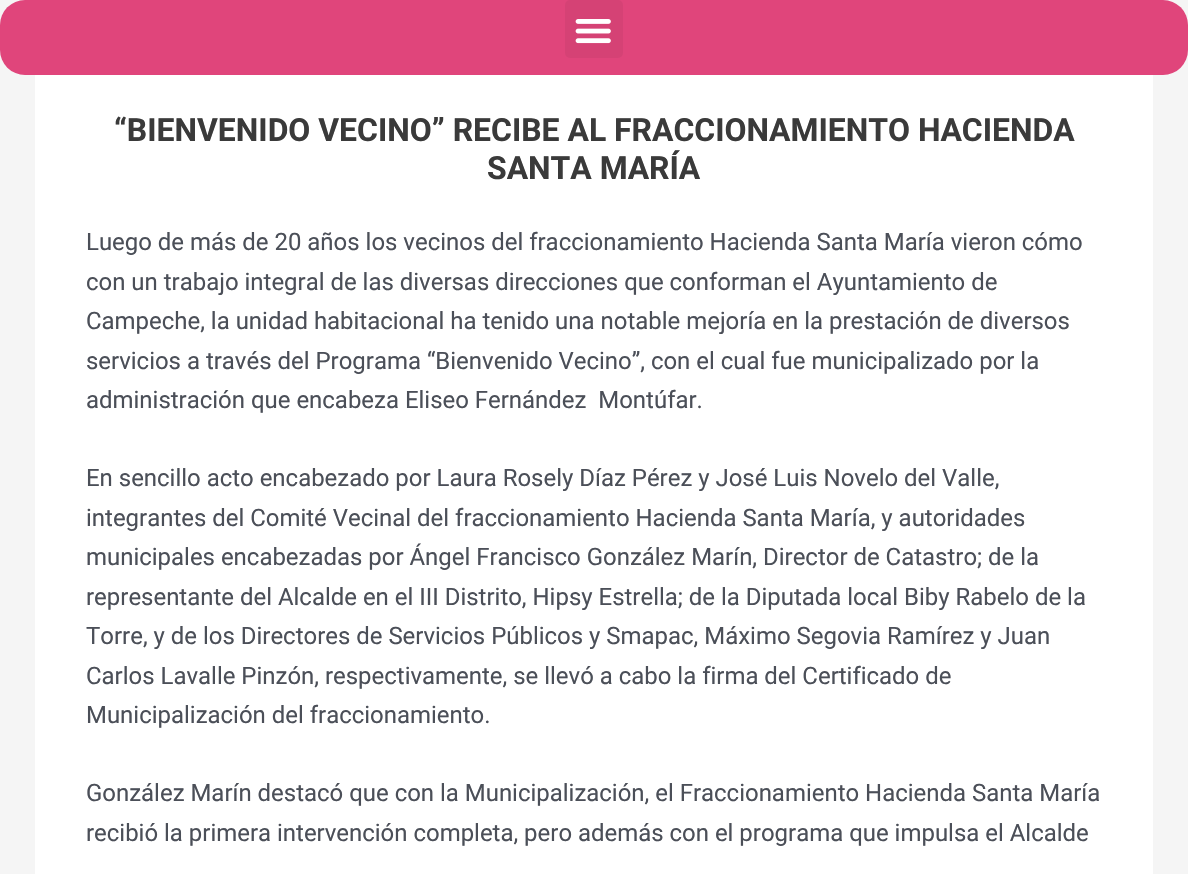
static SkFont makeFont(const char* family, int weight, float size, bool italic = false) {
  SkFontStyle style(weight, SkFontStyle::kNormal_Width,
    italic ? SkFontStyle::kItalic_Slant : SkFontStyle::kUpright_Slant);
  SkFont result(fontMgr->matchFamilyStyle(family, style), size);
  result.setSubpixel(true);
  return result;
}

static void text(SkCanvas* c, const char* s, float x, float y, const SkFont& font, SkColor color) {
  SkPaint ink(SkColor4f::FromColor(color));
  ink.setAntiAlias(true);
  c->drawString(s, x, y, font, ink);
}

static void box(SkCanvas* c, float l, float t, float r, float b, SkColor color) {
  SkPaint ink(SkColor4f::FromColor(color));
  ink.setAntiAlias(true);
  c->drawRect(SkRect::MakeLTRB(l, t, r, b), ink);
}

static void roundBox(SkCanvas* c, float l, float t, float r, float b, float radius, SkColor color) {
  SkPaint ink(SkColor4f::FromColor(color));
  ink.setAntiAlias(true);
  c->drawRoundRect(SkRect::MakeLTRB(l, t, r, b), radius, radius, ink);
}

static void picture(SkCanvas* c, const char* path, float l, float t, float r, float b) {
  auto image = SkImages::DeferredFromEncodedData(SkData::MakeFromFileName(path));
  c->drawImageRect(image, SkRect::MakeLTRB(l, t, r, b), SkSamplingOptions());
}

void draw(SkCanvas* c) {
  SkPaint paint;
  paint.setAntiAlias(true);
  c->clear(0xfff5f5f5);
  roundBox(c, 0, 0, 1188, 75, 25, 0xffe0457b);
  roundBox(c, 565, 0, 623, 58, 5, 0xffd54275);
  picture(c, "img_01.png", 575, 19, 611, 44);
  box(c, 35, 75, 1153, 874, 0xffffffff);
  SkFont face1 = makeFont("Roboto", 700, 31.9f);
  text(c, "“BIENVENIDO VECINO” RECIBE AL FRACCIONAMIENTO HACIENDA", 114, 141, face1, 0xff3a3a3a);
  text(c, "SANTA MARÍA", 487, 179, face1, 0xff3a3a3a);
  SkFont face2 = makeFont("Roboto", 400, 23.95f);
  text(c, "Luego de más de 20 años los vecinos del fraccionamiento Hacienda Santa María vieron cómo", 86, 250, face2, 0xff4b4f58);
  text(c, "con un trabajo integral de las diversas direcciones que conforman el Ayuntamiento de", 86, 290, face2, 0xff4b4f58);
  text(c, "Campeche, la unidad habitacional ha tenido una notable mejoría en la prestación de diversos", 86, 329, face2, 0xff4b4f58);
  text(c, "servicios a través del Programa “Bienvenido Vecino”, con el cual fue municipalizado por la", 86, 369, face2, 0xff4b4f58);
  text(c, "administración que encabeza Eliseo Fernández  Montúfar.", 86, 408, face2, 0xff4b4f58);
  text(c, "En sencillo acto encabezado por Laura Rosely Díaz Pérez y José Luis Novelo del Valle,", 86, 486, face2, 0xff4b4f58);
  text(c, "integrantes del Comité Vecinal del fraccionamiento Hacienda Santa María, y autoridades", 86, 526, face2, 0xff4b4f58);
  text(c, "municipales encabezadas por Ángel Francisco González Marín, Director de Catastro; de la", 86, 565, face2, 0xff4b4f58);
  text(c, "representante del Alcalde en el III Distrito, Hipsy Estrella; de la Diputada local Biby Rabelo de la", 86, 605, face2, 0xff4b4f58);
  text(c, "Torre, y de los Directores de Servicios Públicos y Smapac, Máximo Segovia Ramírez y Juan", 86, 644, face2, 0xff4b4f58);
  text(c, "Carlos Lavalle Pinzón, respectivamente, se llevó a cabo la firma del Certificado de", 86, 684, face2, 0xff4b4f58);
  text(c, "Municipalización del fraccionamiento.", 86, 723, face2, 0xff4b4f58);
  text(c, "González Marín destacó que con la Municipalización, el Fraccionamiento Hacienda Santa María", 86, 801, face2, 0xff4b4f58);
  text(c, "recibió la primera intervención completa, pero además con el programa que impulsa el Alcalde", 86, 841, face2, 0xff4b4f58);
}
